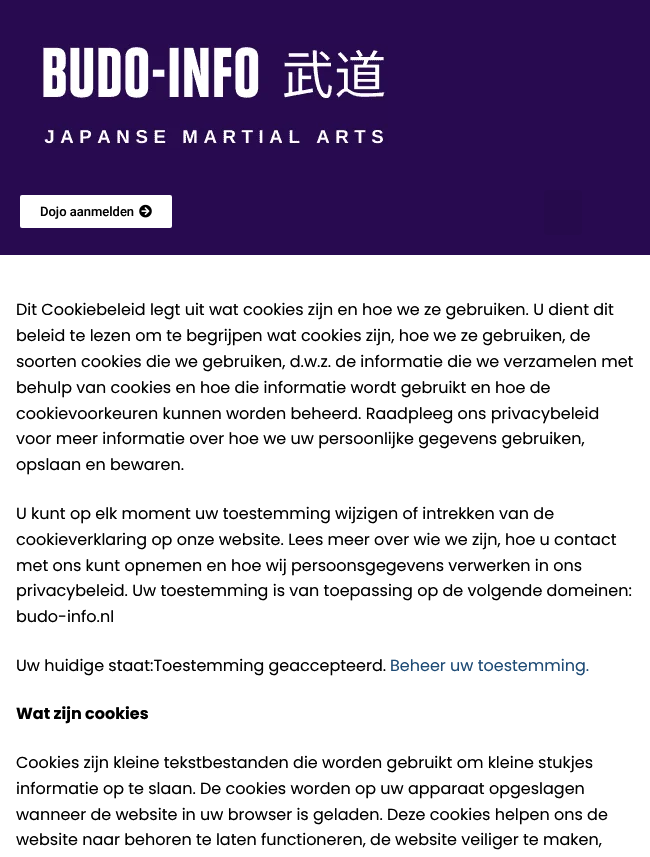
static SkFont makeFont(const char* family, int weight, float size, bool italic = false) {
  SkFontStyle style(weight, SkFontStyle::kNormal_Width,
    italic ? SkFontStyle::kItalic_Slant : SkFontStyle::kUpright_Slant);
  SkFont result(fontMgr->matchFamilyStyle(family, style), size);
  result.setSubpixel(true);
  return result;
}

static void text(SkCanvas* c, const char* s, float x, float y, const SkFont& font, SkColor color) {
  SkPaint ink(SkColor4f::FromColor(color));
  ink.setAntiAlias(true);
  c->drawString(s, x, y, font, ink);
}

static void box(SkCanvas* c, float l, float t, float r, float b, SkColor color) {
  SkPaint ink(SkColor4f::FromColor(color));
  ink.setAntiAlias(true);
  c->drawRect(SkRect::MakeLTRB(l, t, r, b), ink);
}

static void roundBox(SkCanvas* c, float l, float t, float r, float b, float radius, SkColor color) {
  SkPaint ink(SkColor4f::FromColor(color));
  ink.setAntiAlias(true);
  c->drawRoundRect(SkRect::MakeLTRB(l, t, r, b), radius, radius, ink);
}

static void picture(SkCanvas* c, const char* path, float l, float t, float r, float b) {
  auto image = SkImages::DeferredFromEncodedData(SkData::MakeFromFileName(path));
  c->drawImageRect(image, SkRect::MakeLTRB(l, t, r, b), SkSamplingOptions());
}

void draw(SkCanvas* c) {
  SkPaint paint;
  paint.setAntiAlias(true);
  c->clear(0xffffffff);
  box(c, 0, 0, 650, 255, 0xff280a50);
  picture(c, "img_01.png", 40, 44, 388, 148);
  roundBox(c, 20, 195, 172, 228, 2, 0xffffffff);
  SkFont face1 = makeFont("Roboto", 500, 13);
  text(c, "Dojo aanmelden", 40, 216, face1, 0xff000000);
  picture(c, "img_02.png", 139, 204, 152, 218);
  roundBox(c, 544, 190, 582, 235, 3, 0xff260a4c);
  SkFont face2 = makeFont("Poppins", 400, 16);
  text(c, "Dit Cookiebeleid legt uit wat cookies zijn en hoe we ze gebruiken. U dient dit", 16, 315, face2, 0xff000000);
  text(c, "beleid te lezen om te begrijpen wat cookies zijn, hoe we ze gebruiken, de", 16, 341, face2, 0xff000000);
  text(c, "soorten cookies die we gebruiken, d.w.z. de informatie die we verzamelen met", 16, 367, face2, 0xff000000);
  text(c, "behulp van cookies en hoe die informatie wordt gebruikt en hoe de", 16, 393, face2, 0xff000000);
  text(c, "cookievoorkeuren kunnen worden beheerd. Raadpleeg ons privacybeleid", 16, 419, face2, 0xff000000);
  text(c, "voor meer informatie over hoe we uw persoonlijke gegevens gebruiken,", 16, 444, face2, 0xff000000);
  text(c, "opslaan en bewaren.", 16, 470, face2, 0xff000000);
  text(c, "U kunt op elk moment uw toestemming wijzigen of intrekken van de", 16, 519, face2, 0xff000000);
  text(c, "cookieverklaring op onze website. Lees meer over wie we zijn, hoe u contact", 16, 545, face2, 0xff000000);
  text(c, "met ons kunt opnemen en hoe wij persoonsgegevens verwerken in ons", 16, 571, face2, 0xff000000);
  text(c, "privacybeleid. Uw toestemming is van toepassing op de volgende domeinen:", 16, 596, face2, 0xff000000);
  text(c, "budo-info.nl", 16, 622, face2, 0xff000000);
  text(c, "Uw huidige staat:Toestemming geaccepteerd.", 16, 671, face2, 0xff000000);
  text(c, "Beheer uw toestemming.", 390, 671, face2, 0xff1e4b75);
  SkFont face3 = makeFont("Poppins", 700, 16);
  text(c, "Wat zijn cookies", 16, 719, face3, 0xff000000);
  text(c, "Cookies zijn kleine tekstbestanden die worden gebruikt om kleine stukjes", 16, 768, face2, 0xff000000);
  text(c, "informatie op te slaan. De cookies worden op uw apparaat opgeslagen", 16, 794, face2, 0xff000000);
  text(c, "wanneer de website in uw browser is geladen. Deze cookies helpen ons de", 16, 820, face2, 0xff000000);
  text(c, "website naar behoren te laten functioneren, de website veiliger te maken,", 16, 845, face2, 0xff000000);
}
